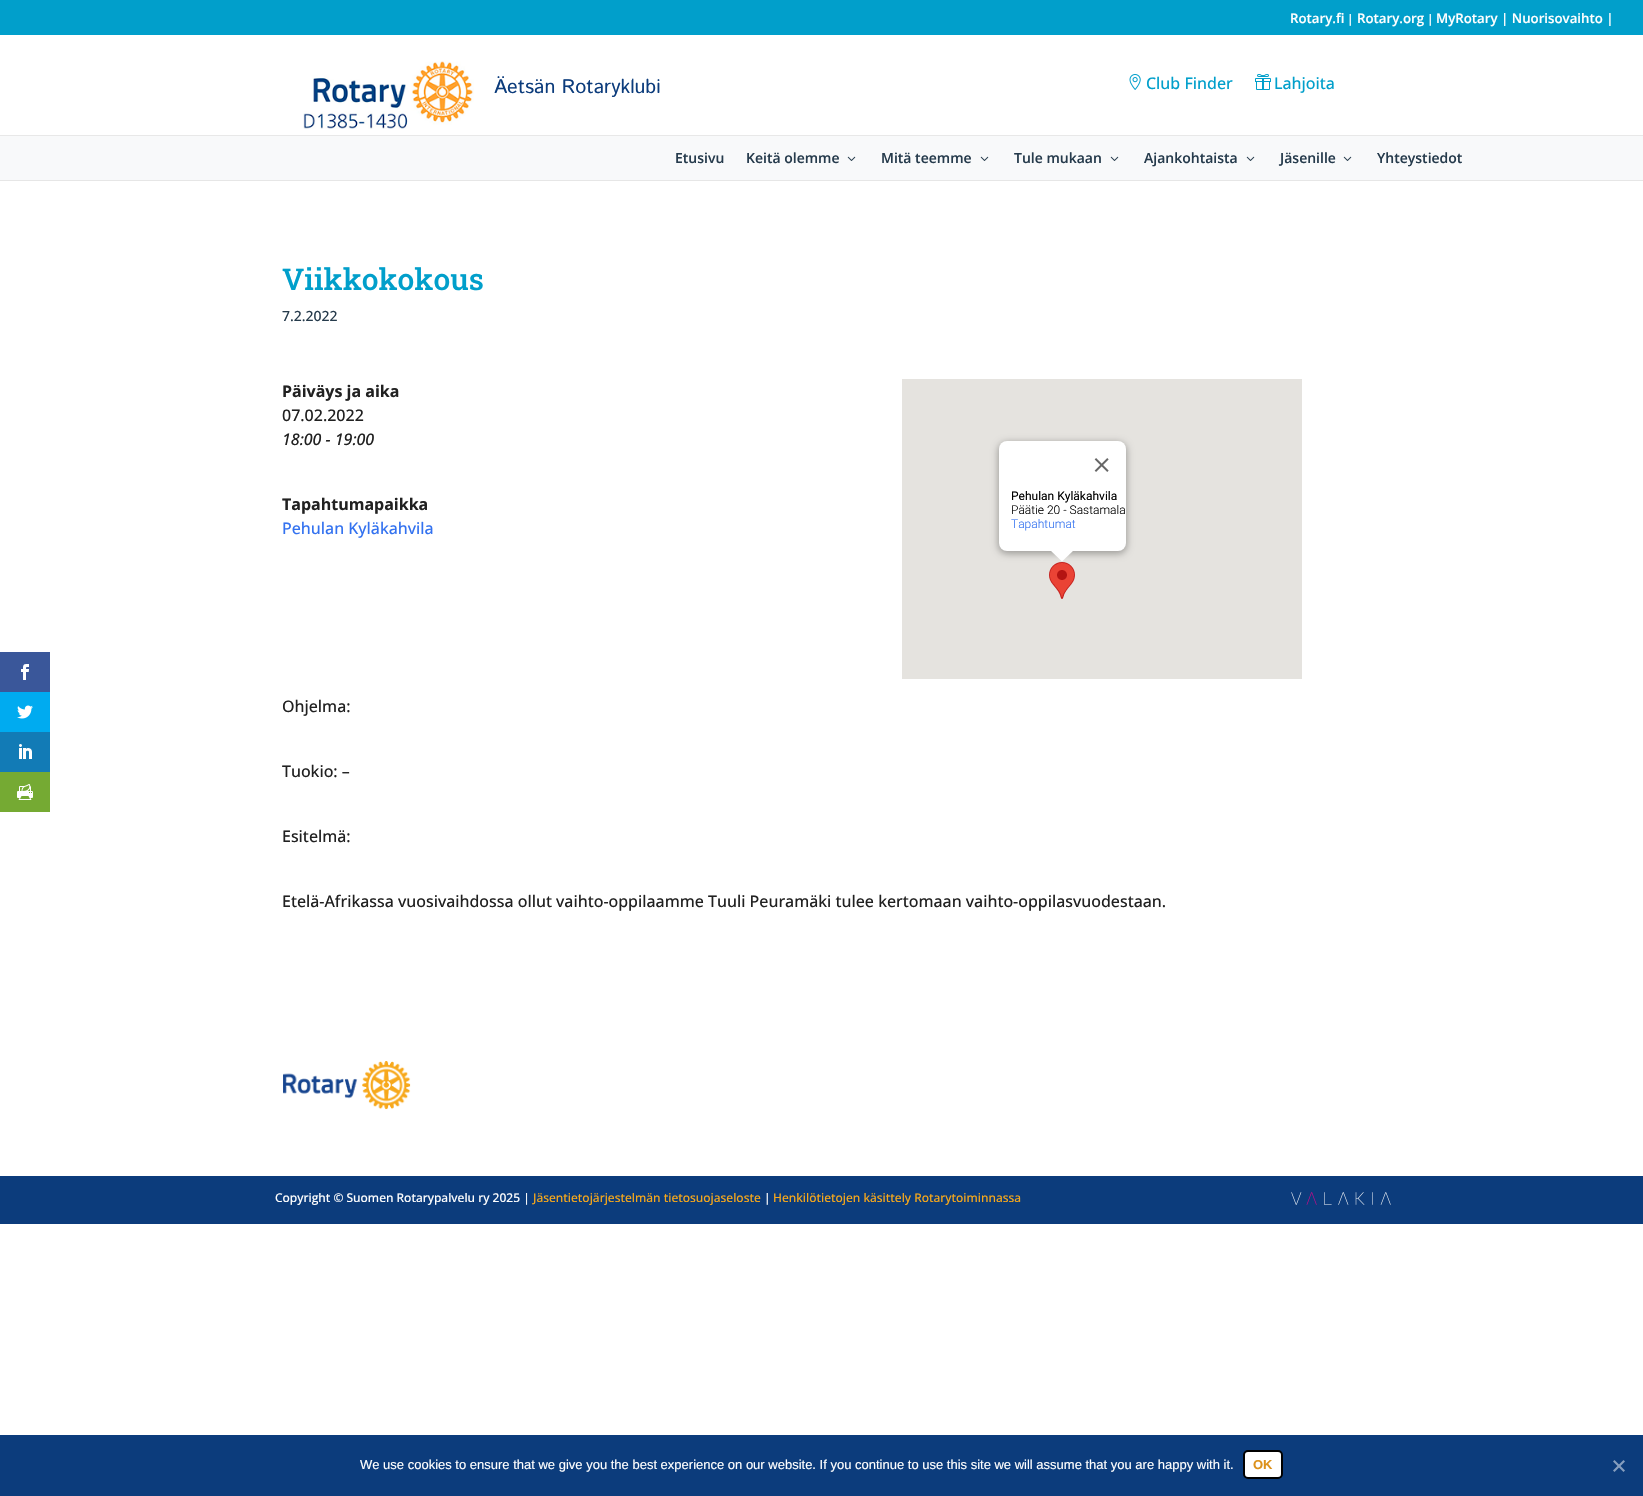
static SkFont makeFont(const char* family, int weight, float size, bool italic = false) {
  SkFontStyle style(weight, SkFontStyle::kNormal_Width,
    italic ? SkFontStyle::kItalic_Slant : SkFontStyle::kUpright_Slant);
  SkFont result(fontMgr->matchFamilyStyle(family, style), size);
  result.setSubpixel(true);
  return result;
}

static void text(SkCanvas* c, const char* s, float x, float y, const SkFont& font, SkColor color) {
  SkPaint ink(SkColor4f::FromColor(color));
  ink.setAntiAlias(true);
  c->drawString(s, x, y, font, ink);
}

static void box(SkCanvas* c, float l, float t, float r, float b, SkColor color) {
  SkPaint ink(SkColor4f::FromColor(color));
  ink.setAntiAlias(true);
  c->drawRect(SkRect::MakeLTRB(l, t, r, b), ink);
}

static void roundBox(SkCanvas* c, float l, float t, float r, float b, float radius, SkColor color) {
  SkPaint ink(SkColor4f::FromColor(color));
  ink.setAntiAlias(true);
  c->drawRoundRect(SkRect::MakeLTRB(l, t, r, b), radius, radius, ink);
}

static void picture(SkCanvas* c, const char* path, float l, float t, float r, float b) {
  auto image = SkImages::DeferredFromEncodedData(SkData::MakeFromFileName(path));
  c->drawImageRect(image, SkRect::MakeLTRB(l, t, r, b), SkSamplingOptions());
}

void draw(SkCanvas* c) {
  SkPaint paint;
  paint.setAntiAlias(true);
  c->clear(0xffffffff);
  box(c, 0, 652, 50, 692, 0xff3a579a);
  picture(c, "img_01.png", 21, 664, 29, 680);
  box(c, 0, 692, 50, 732, 0xff00abf0);
  picture(c, "img_02.png", 17, 705, 33, 719);
  box(c, 0, 732, 50, 772, 0xff127bb6);
  picture(c, "img_03.png", 19, 744, 32, 759);
  box(c, 0, 772, 50, 812, 0xff75aa33);
  picture(c, "img_04.png", 17, 784, 33, 800);
  box(c, 0, 0, 1643, 35, 0xff019fcb);
  SkFont face1 = makeFont("Open Sans", 600, 13.25f);
  text(c, "Rotary.fi", 1290, 23, face1, 0xffffffff);
  SkFont face2 = makeFont("Open Sans", 600, 12);
  text(c, "|", 1347, 23, face2, 0xffffffff);
  text(c, "Rotary.org", 1357, 23, face1, 0xffffffff);
  text(c, "|", 1427, 23, face2, 0xffffffff);
  text(c, "MyRotary | Nuorisovaihto |", 1436, 23, face1, 0xffffffff);
  box(c, 0, 180, 1643, 181, 0xffe6e6e6);
  picture(c, "img_05.png", 303, 61, 474, 129);
  SkFont face3 = makeFont("Istok Web", 400, 19.75f);
  text(c, "Äetsän Rotaryklubi", 494, 93, face3, 0xff0c3c7c);
  picture(c, "img_06.png", 1129, 74, 1141, 90);
  SkFont face4 = makeFont("Open Sans", 500, 16);
  text(c, "Club Finder", 1146, 89, face4, 0xff019fcb);
  picture(c, "img_07.png", 1255, 74, 1271, 90);
  text(c, "Lahjoita", 1274, 89, face4, 0xff019fcb);
  box(c, 0, 136, 1643, 180, 0xfff8f9fa);
  box(c, 0, 135, 1643, 136, 0xffe8e8e8);
  SkFont face5 = makeFont("Open Sans", 600, 14);
  text(c, "Etusivu", 675, 163, face5, 0xff263b4c);
  text(c, "Keitä olemme", 746, 163, face5, 0xff263b4c);
  picture(c, "img_08.png", 847, 156, 856, 161);
  text(c, "Mitä teemme", 881, 163, face5, 0xff263b4c);
  picture(c, "img_08.png", 980, 156, 989, 161);
  text(c, "Tule mukaan", 1014, 163, face5, 0xff263b4c);
  picture(c, "img_08.png", 1110, 156, 1119, 161);
  text(c, "Ajankohtaista", 1144, 163, face5, 0xff263b4c);
  picture(c, "img_08.png", 1246, 156, 1255, 161);
  text(c, "Jäsenille", 1280, 163, face5, 0xff263b4c);
  picture(c, "img_08.png", 1343, 156, 1352, 161);
  text(c, "Yhteystiedot", 1377, 163, face5, 0xff263b4c);
  SkFont face6 = makeFont("Roboto Slab", 500, 30);
  text(c, "Viikkokokous", 282, 290, face6, 0xff019fcb);
  SkFont face7 = makeFont("Open Sans", 500, 14);
  text(c, "7.2.2022", 282, 321, face7, 0xff263b4c);
  SkFont face8 = makeFont("Open Sans", 700, 16);
  text(c, "Päiväys ja aika", 282, 397, face8, 0xff212121);
  text(c, "07.02.2022", 282, 421, face4, 0xff212121);
  SkFont face9 = makeFont("Open Sans", 500, 16, true);
  text(c, "18:00 - 19:00", 282, 445, face9, 0xff212121);
  text(c, "Tapahtumapaikka", 282, 510, face8, 0xff212121);
  text(c, "Pehulan Kyläkahvila", 282, 534, face4, 0xff3372f0);
  box(c, 902, 379, 1302, 679, 0xffe5e3df);
  picture(c, "img_10.png", 1049, 562, 1075, 599);
  paint.setColor(0x4d000000);
  paint.setMaskFilter(SkMaskFilter::MakeBlur(kNormal_SkBlurStyle, 3.5f));
  c->drawRoundRect(SkRect::MakeLTRB(998, 442, 1127, 554), 9, 9, paint);
  paint.setMaskFilter(nullptr);
  roundBox(c, 999, 441, 1126, 551, 8, 0xffffffff);
  picture(c, "img_09.png", 1094, 458, 1109, 472);
  SkFont face10 = makeFont("Roboto", 400, 12);
  text(c, "Pehulan Kyläkahvila", 1011, 500, face10, 0xff000000);
  SkFont face11 = makeFont("Roboto", 300, 12);
  text(c, "Päätie 20 - Sastamala", 1011, 514, face11, 0xff000000);
  text(c, "Tapahtumat", 1011, 528, face11, 0xff3372f0);
  paint.setColor(0xffffffff);
  c->drawPath(SkPathBuilder().moveTo(1074, 550).lineTo(1050, 550).lineTo(1062, 561.5f).close().detach(), paint);
  text(c, "Ohjelma:", 282, 712, face4, 0xff212121);
  text(c, "Tuokio: –", 282, 777, face4, 0xff212121);
  text(c, "Esitelmä:", 282, 842, face4, 0xff212121);
  text(c, "Etelä-Afrikassa vuosivaihdossa ollut vaihto-oppilaamme Tuuli Peuramäki tulee kertomaan vaihto-oppilasvuodestaan.", 282, 907, face4, 0xff212121);
  picture(c, "img_11.png", 283, 1061, 411, 1110);
  box(c, 0, 1176, 1643, 1224, 0xff0c3c7c);
  SkFont face12 = makeFont("Open Sans", 500, 12);
  text(c, "Copyright © Suomen Rotarypalvelu ry 2025 |", 275, 1202, face12, 0xffffffff);
  text(c, "Jäsentietojärjestelmän tietosuojaseloste", 533, 1202, face12, 0xfff7a81b);
  text(c, "|", 764, 1202, face12, 0xffffffff);
  text(c, "Henkilötietojen käsittely Rotarytoiminnassa", 773, 1202, face12, 0xfff7a81b);
  picture(c, "img_12.png", 1291, 1192, 1391, 1205);
  box(c, 0, 1435, 1643, 1496, 0xff0c3c7c);
  SkFont face13 = makeFont("Liberation Sans", 400, 13);
  text(c, "We use cookies to ensure that we give you the best experience on our website. If you continue to use this site we will assume that you are happy with it.", 360, 1469, face13, 0xffffffff);
  c->drawRoundRect(SkRect::MakeLTRB(1244, 1451, 1282, 1478), 4, 4, paint);
  paint.setStyle(SkPaint::kStroke_Style);
  paint.setStrokeWidth(2);
  paint.setColor(0xff000000);
  c->drawRoundRect(SkRect::MakeLTRB(1244, 1451, 1282, 1478), 4, 4, paint);
  SkFont face14 = makeFont("Liberation Sans", 700, 13);
  text(c, "OK", 1253, 1469, face14, 0xffdc911b);
  paint.setStyle(SkPaint::kFill_Style);
  paint.setColor(0xff869ebe);
  c->drawPath(SkPathBuilder().moveTo(1623.5f, 1460).lineTo(1625, 1461.5f).lineTo(1614.5f, 1472).lineTo(1613, 1470.5f).close().detach(), paint);
  c->drawPath(SkPathBuilder().moveTo(1613, 1461.5f).lineTo(1614.5f, 1460).lineTo(1625, 1470.5f).lineTo(1623.5f, 1472).close().detach(), paint);
}
